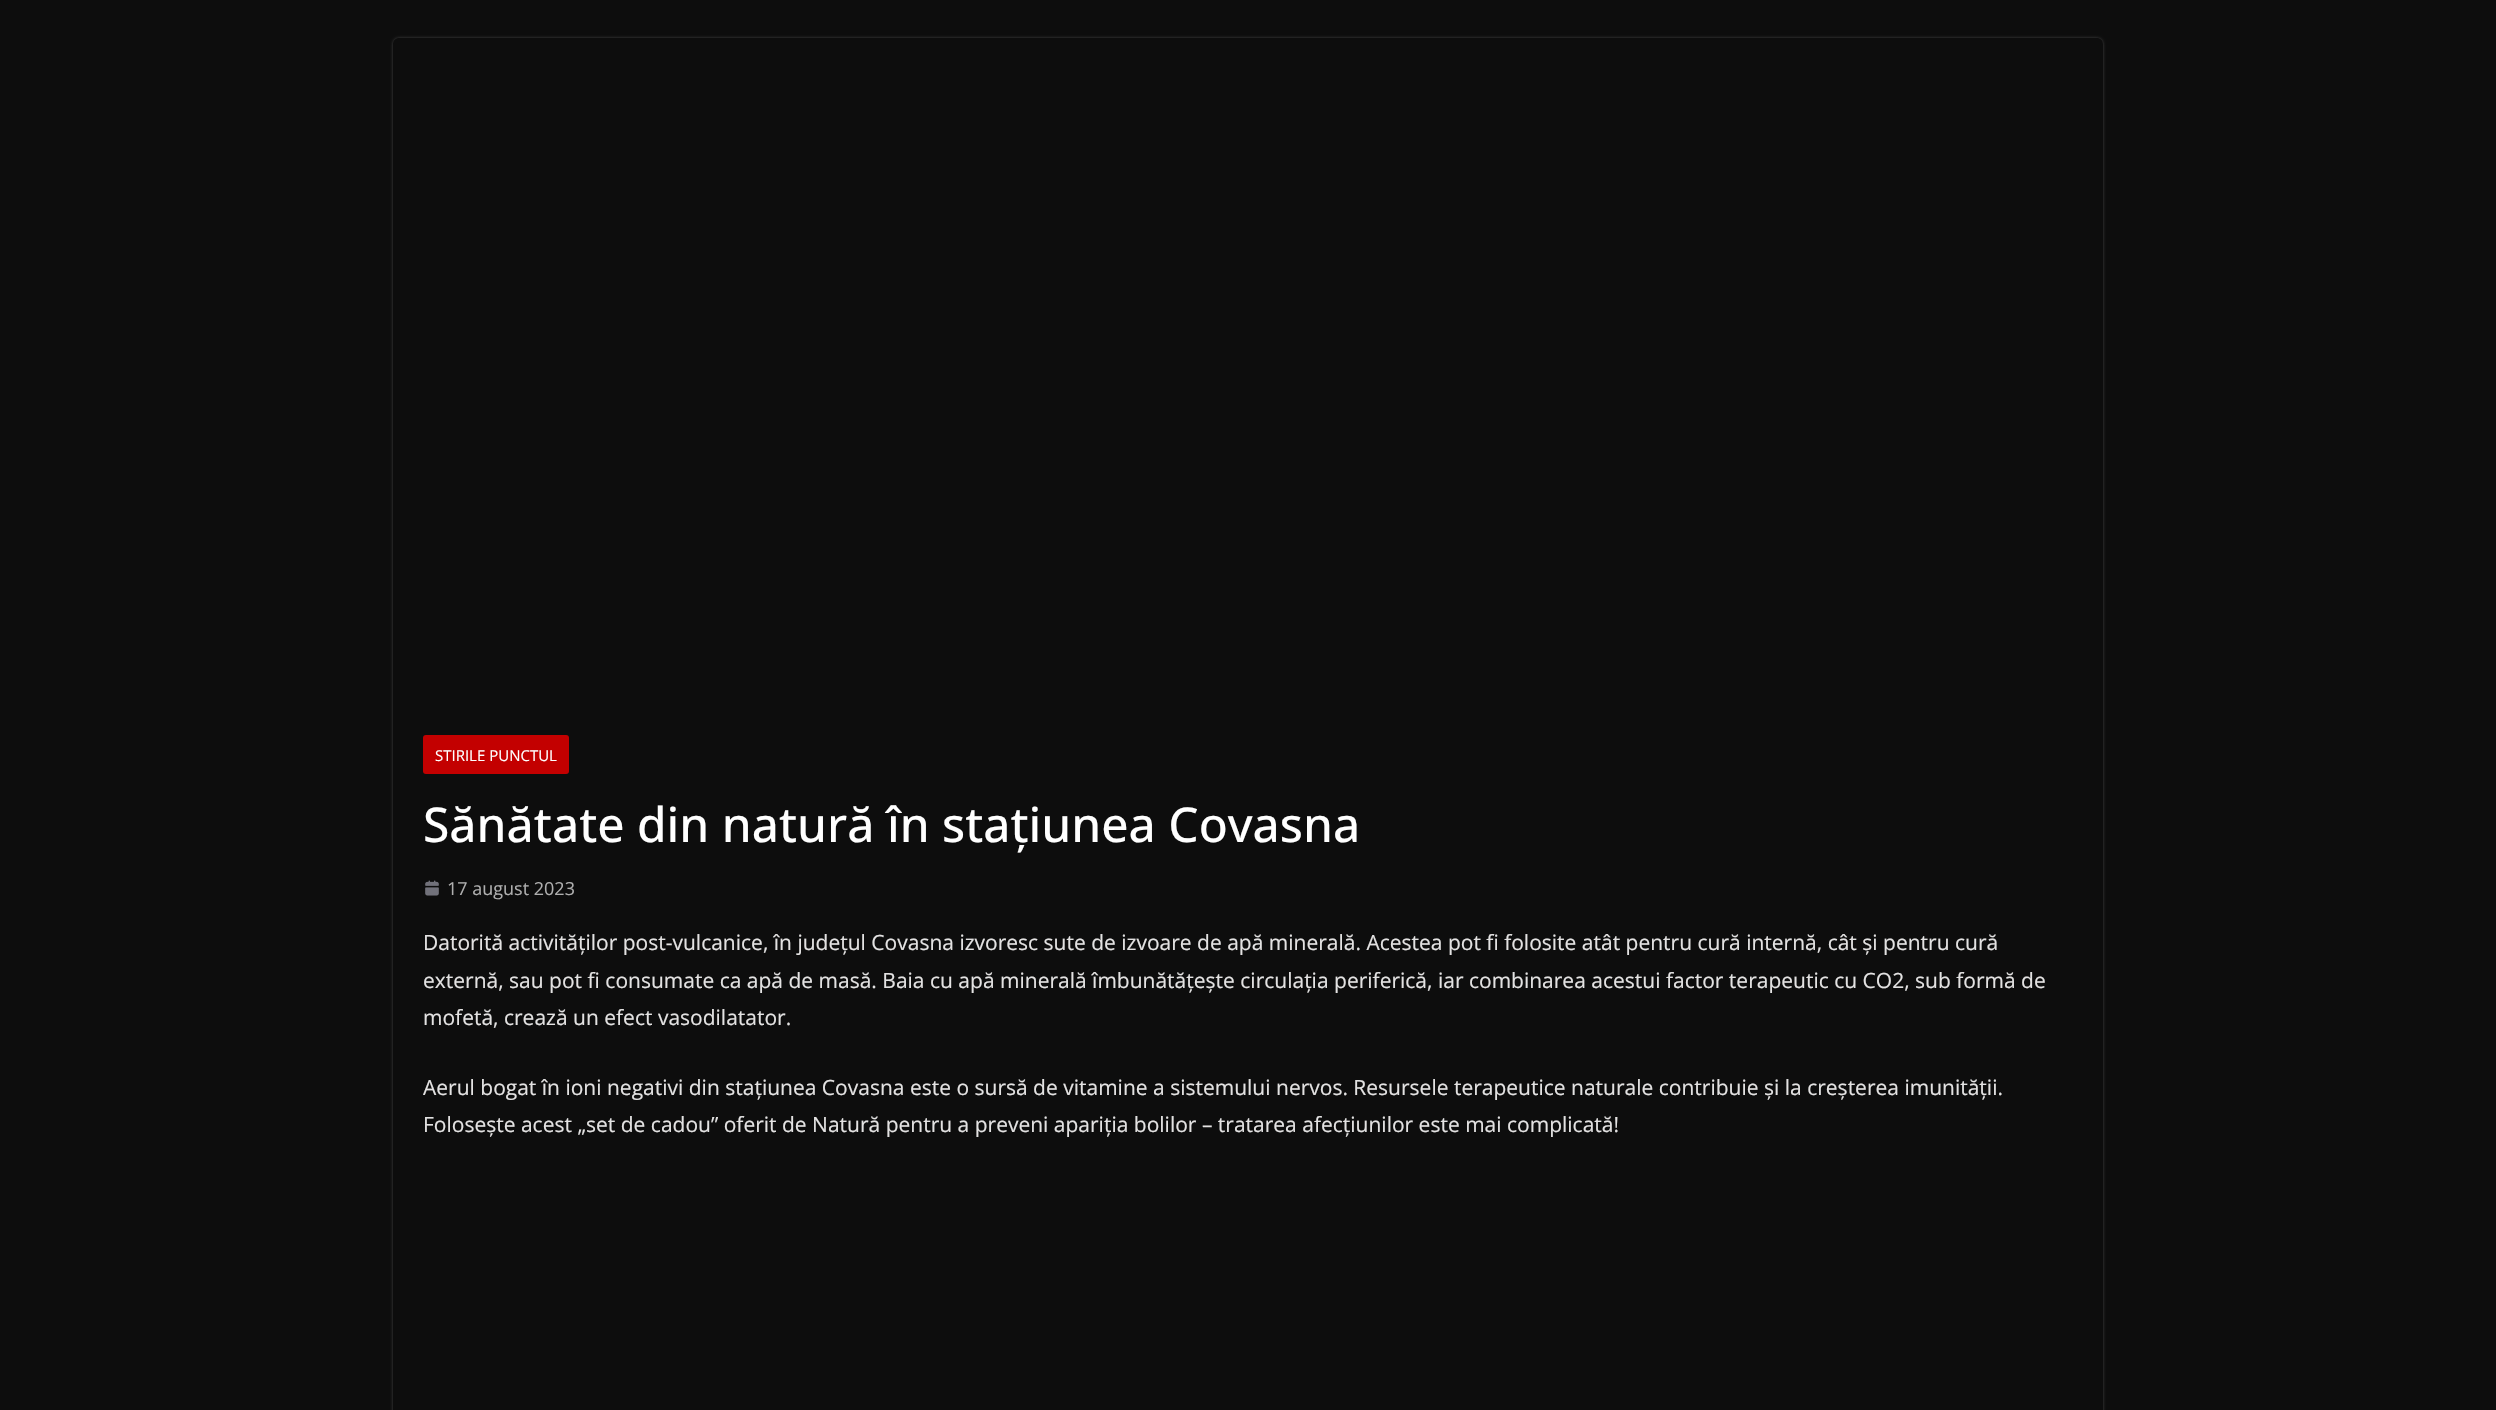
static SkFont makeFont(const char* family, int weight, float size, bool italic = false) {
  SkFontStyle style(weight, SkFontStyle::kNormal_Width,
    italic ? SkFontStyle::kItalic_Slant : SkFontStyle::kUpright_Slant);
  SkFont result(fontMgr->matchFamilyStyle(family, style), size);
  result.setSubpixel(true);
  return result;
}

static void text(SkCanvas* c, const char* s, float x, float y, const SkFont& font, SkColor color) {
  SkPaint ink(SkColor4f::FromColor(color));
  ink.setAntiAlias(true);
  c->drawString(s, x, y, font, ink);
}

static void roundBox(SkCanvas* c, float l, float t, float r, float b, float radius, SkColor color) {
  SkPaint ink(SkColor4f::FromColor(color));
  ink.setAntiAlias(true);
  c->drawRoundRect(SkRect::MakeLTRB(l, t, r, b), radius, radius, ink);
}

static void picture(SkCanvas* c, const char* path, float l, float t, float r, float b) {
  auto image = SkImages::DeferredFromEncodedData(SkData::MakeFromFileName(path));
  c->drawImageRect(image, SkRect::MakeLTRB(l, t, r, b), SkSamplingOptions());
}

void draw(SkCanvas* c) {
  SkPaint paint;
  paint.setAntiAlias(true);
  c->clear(0xff0d0d0d);
  c->save();
  c->clipPath(SkPathBuilder(SkPathFillType::kEvenOdd).moveTo(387, 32).lineTo(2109, 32).lineTo(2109, 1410).lineTo(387, 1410).close().moveTo(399, 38).lineTo(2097, 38).cubicTo(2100.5f, 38, 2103, 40.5f, 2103, 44).lineTo(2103, 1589).cubicTo(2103, 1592.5f, 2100.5f, 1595, 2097, 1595).lineTo(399, 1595).cubicTo(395.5f, 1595, 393, 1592.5f, 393, 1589).lineTo(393, 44).cubicTo(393, 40.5f, 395.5f, 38, 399, 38).close().detach(), true);
  paint.setColor(0x3dffffff);
  paint.setMaskFilter(SkMaskFilter::MakeBlur(kNormal_SkBlurStyle, 1.5f));
  c->drawRoundRect(SkRect::MakeLTRB(393, 38, 2103, 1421), 6, 6, paint);
  paint.setMaskFilter(nullptr);
  c->restore();
  roundBox(c, 423, 735, 569, 774, 3, 0xffc30000);
  SkFont face1 = makeFont("Open Sans", 400, 15);
  text(c, "STIRILE PUNCTUL", 435, 761, face1, 0xffffffff);
  SkFont face2 = makeFont("Open Sans", 500, 48);
  text(c, "Sănătate din natură în stațiunea Covasna", 423, 842, face2, 0xffffffff);
  picture(c, "img_01.png", 425, 880, 439, 896);
  SkFont face3 = makeFont("Open Sans", 400, 18);
  text(c, "17 august 2023", 447, 895, face3, 0xffaeaeae);
  SkFont face4 = makeFont("Open Sans", 400, 21);
  text(c, "Datorită activităților post-vulcanice, în județul Covasna izvoresc sute de izvoare de apă minerală. Acestea pot fi folosite atât pentru cură internă, cât și pentru cură", 423, 950, face4, 0xffe3e2e2);
  text(c, "externă, sau pot fi consumate ca apă de masă. Baia cu apă minerală îmbunătățește circulația periferică, iar combinarea acestui factor terapeutic cu CO2, sub formă de", 423, 988, face4, 0xffe3e2e2);
  text(c, "mofetă, crează un efect vasodilatator.", 423, 1025, face4, 0xffe3e2e2);
  text(c, "Aerul bogat în ioni negativi din stațiunea Covasna este o sursă de vitamine a sistemului nervos. Resursele terapeutice naturale contribuie și la creșterea imunității.", 423, 1095, face4, 0xffe3e2e2);
  text(c, "Folosește acest „set de cadou” oferit de Natură pentru a preveni apariția bolilor – tratarea afecțiunilor este mai complicată!", 423, 1132, face4, 0xffe3e2e2);
}
